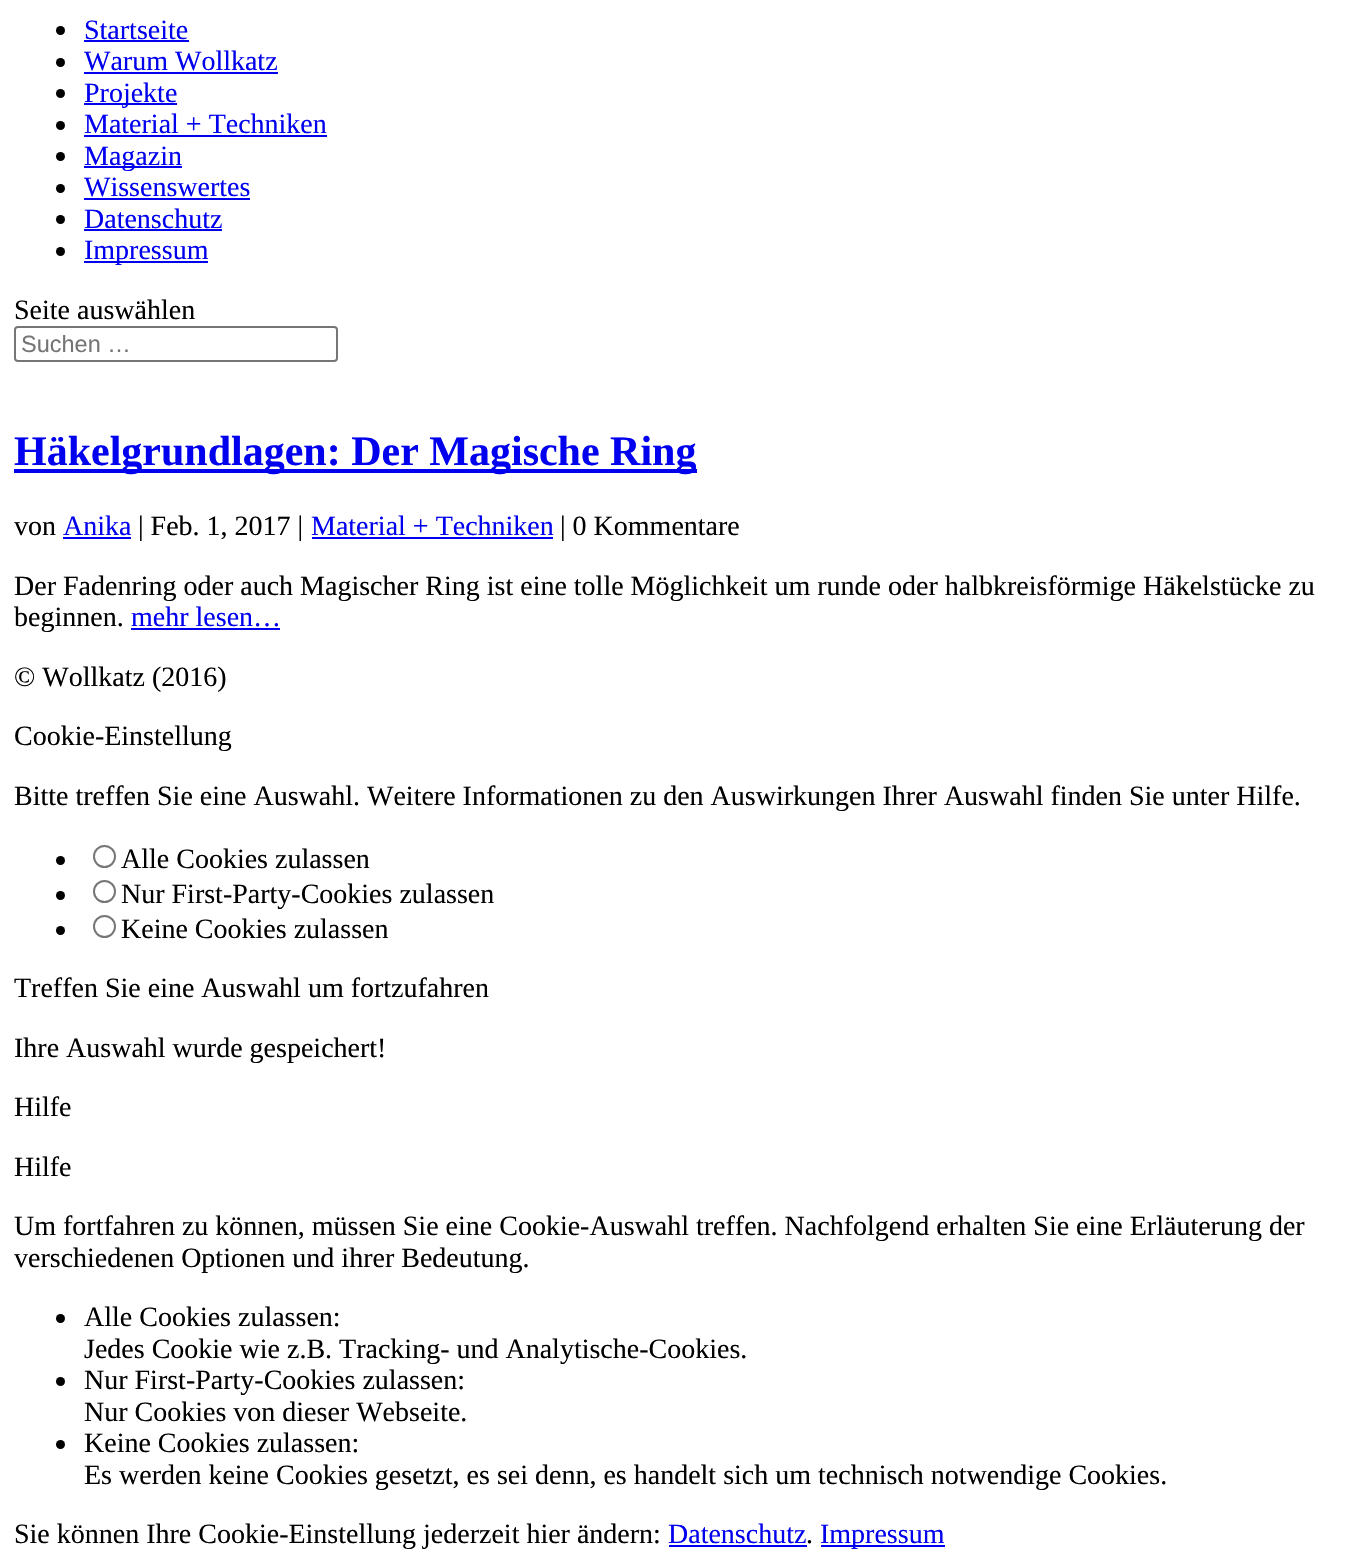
static SkFont makeFont(const char* family, int weight, float size, bool italic = false) {
  SkFontStyle style(weight, SkFontStyle::kNormal_Width,
    italic ? SkFontStyle::kItalic_Slant : SkFontStyle::kUpright_Slant);
  SkFont result(fontMgr->matchFamilyStyle(family, style), size);
  result.setSubpixel(true);
  return result;
}

static void text(SkCanvas* c, const char* s, float x, float y, const SkFont& font, SkColor color) {
  SkPaint ink(SkColor4f::FromColor(color));
  ink.setAntiAlias(true);
  c->drawString(s, x, y, font, ink);
}

static void box(SkCanvas* c, float l, float t, float r, float b, SkColor color) {
  SkPaint ink(SkColor4f::FromColor(color));
  ink.setAntiAlias(true);
  c->drawRect(SkRect::MakeLTRB(l, t, r, b), ink);
}

void draw(SkCanvas* c) {
  SkPaint paint;
  paint.setAntiAlias(true);
  c->clear(0xffffffff);
  paint.setColor(0xff000000);
  c->drawCircle(60.5f, 30.5f, 4.5f, paint);
  SkFont face1 = makeFont("Liberation Serif", 400, 28);
  text(c, "Startseite", 84, 39, face1, 0xff0000ee);
  box(c, 84, 40, 189, 42, 0xff0000ee);
  c->drawCircle(60.5f, 62.5f, 4.5f, paint);
  text(c, "Warum Wollkatz", 84, 70, face1, 0xff0000ee);
  box(c, 84, 72, 278, 74, 0xff0000ee);
  c->drawCircle(60.5f, 93.5f, 4.5f, paint);
  box(c, 84, 103, 177, 105, 0xff0000ee);
  text(c, "Projekte", 84, 102, face1, 0xff0000ee);
  c->drawCircle(60.5f, 125.5f, 4.5f, paint);
  text(c, "Material + Techniken", 84, 133, face1, 0xff0000ee);
  box(c, 84, 135, 327, 137, 0xff0000ee);
  c->drawCircle(60.5f, 156.5f, 4.5f, paint);
  box(c, 84, 166, 182, 168, 0xff0000ee);
  text(c, "Magazin", 84, 165, face1, 0xff0000ee);
  c->drawCircle(60.5f, 188.5f, 4.5f, paint);
  text(c, "Wissenswertes", 84, 196, face1, 0xff0000ee);
  box(c, 84, 198, 250, 200, 0xff0000ee);
  c->drawCircle(60.5f, 219.5f, 4.5f, paint);
  text(c, "Datenschutz", 84, 228, face1, 0xff0000ee);
  box(c, 84, 229, 222, 231, 0xff0000ee);
  c->drawCircle(60.5f, 251.5f, 4.5f, paint);
  box(c, 84, 261, 208, 263, 0xff0000ee);
  text(c, "Impressum", 84, 259, face1, 0xff0000ee);
  text(c, "Seite auswählen", 14, 319, face1, 0xff000000);
  paint.setStyle(SkPaint::kStroke_Style);
  paint.setStrokeWidth(2);
  paint.setColor(0xff767676);
  c->drawRoundRect(SkRect::MakeLTRB(15, 327, 337, 361), 3, 3, paint);
  SkFont face2 = makeFont("Liberation Sans", 400, 23.5f);
  text(c, "Suchen …", 21, 352, face2, 0xff757575);
  box(c, 14, 469, 697, 473, 0xff0000ee);
  SkFont face3 = makeFont("Liberation Serif", 700, 42);
  text(c, "Häkelgrundlagen: Der Magische Ring", 14, 465, face3, 0xff0000ee);
  text(c, "von", 14, 535, face1, 0xff000000);
  text(c, "Anika", 63, 535, face1, 0xff0000ee);
  box(c, 63, 537, 131, 539, 0xff0000ee);
  text(c, "| Feb. 1, 2017 |", 138, 535, face1, 0xff000000);
  text(c, "Material + Techniken", 311, 535, face1, 0xff0000ee);
  box(c, 312, 537, 553, 539, 0xff0000ee);
  text(c, "| 0 Kommentare", 560, 535, face1, 0xff000000);
  text(c, "Der Fadenring oder auch Magischer Ring ist eine tolle Möglichkeit um runde oder halbkreisförmige Häkelstücke zu", 14, 595, face1, 0xff000000);
  text(c, "beginnen.", 14, 626, face1, 0xff000000);
  text(c, "mehr lesen…", 131, 626, face1, 0xff0000ee);
  box(c, 131, 628, 280, 630, 0xff0000ee);
  text(c, "© Wollkatz (2016)", 14, 686, face1, 0xff000000);
  text(c, "Cookie-Einstellung", 14, 745, face1, 0xff000000);
  text(c, "Bitte treffen Sie eine Auswahl. Weitere Informationen zu den Auswirkungen Ihrer Auswahl finden Sie unter Hilfe.", 14, 805, face1, 0xff000000);
  paint.setStyle(SkPaint::kFill_Style);
  paint.setColor(0xff000000);
  c->drawCircle(60.5f, 860.5f, 4.5f, paint);
  paint.setStyle(SkPaint::kStroke_Style);
  paint.setColor(0xff767676);
  c->drawCircle(104.5f, 856.5f, 10.5f, paint);
  text(c, "Alle Cookies zulassen", 121, 868, face1, 0xff000000);
  paint.setStyle(SkPaint::kFill_Style);
  paint.setColor(0xff000000);
  c->drawCircle(60.5f, 895.5f, 4.5f, paint);
  paint.setStyle(SkPaint::kStroke_Style);
  paint.setColor(0xff767676);
  c->drawCircle(104.5f, 891.5f, 10.5f, paint);
  text(c, "Nur First-Party-Cookies zulassen", 121, 903, face1, 0xff000000);
  paint.setStyle(SkPaint::kFill_Style);
  paint.setColor(0xff000000);
  c->drawCircle(60.5f, 930.5f, 4.5f, paint);
  paint.setStyle(SkPaint::kStroke_Style);
  paint.setColor(0xff767676);
  c->drawCircle(104.5f, 926.5f, 10.5f, paint);
  text(c, "Keine Cookies zulassen", 121, 938, face1, 0xff000000);
  text(c, "Treffen Sie eine Auswahl um fortzufahren", 14, 997, face1, 0xff000000);
  text(c, "Ihre Auswahl wurde gespeichert!", 14, 1057, face1, 0xff000000);
  text(c, "Hilfe", 14, 1116, face1, 0xff000000);
  text(c, "Hilfe", 14, 1176, face1, 0xff000000);
  text(c, "Um fortfahren zu können, müssen Sie eine Cookie-Auswahl treffen. Nachfolgend erhalten Sie eine Erläuterung der", 14, 1235, face1, 0xff000000);
  text(c, "verschiedenen Optionen und ihrer Bedeutung.", 14, 1267, face1, 0xff000000);
  paint.setStyle(SkPaint::kFill_Style);
  paint.setColor(0xff000000);
  c->drawCircle(60.5f, 1318.5f, 4.5f, paint);
  text(c, "Alle Cookies zulassen:", 84, 1326, face1, 0xff000000);
  text(c, "Jedes Cookie wie z.B. Tracking- und Analytische-Cookies.", 84, 1358, face1, 0xff000000);
  c->drawCircle(60.5f, 1381.5f, 4.5f, paint);
  text(c, "Nur First-Party-Cookies zulassen:", 84, 1389, face1, 0xff000000);
  text(c, "Nur Cookies von dieser Webseite.", 84, 1421, face1, 0xff000000);
  c->drawCircle(60.5f, 1444.5f, 4.5f, paint);
  text(c, "Keine Cookies zulassen:", 84, 1452, face1, 0xff000000);
  text(c, "Es werden keine Cookies gesetzt, es sei denn, es handelt sich um technisch notwendige Cookies.", 84, 1484, face1, 0xff000000);
  text(c, "Sie können Ihre Cookie-Einstellung jederzeit hier ändern:", 14, 1543, face1, 0xff000000);
  text(c, "Datenschutz", 668, 1543, face1, 0xff0000ee);
  box(c, 669, 1545, 807, 1547, 0xff0000ee);
  text(c, ".", 806, 1543, face1, 0xff000000);
  box(c, 821, 1545, 945, 1547, 0xff0000ee);
  text(c, "Impressum", 820, 1543, face1, 0xff0000ee);
}
